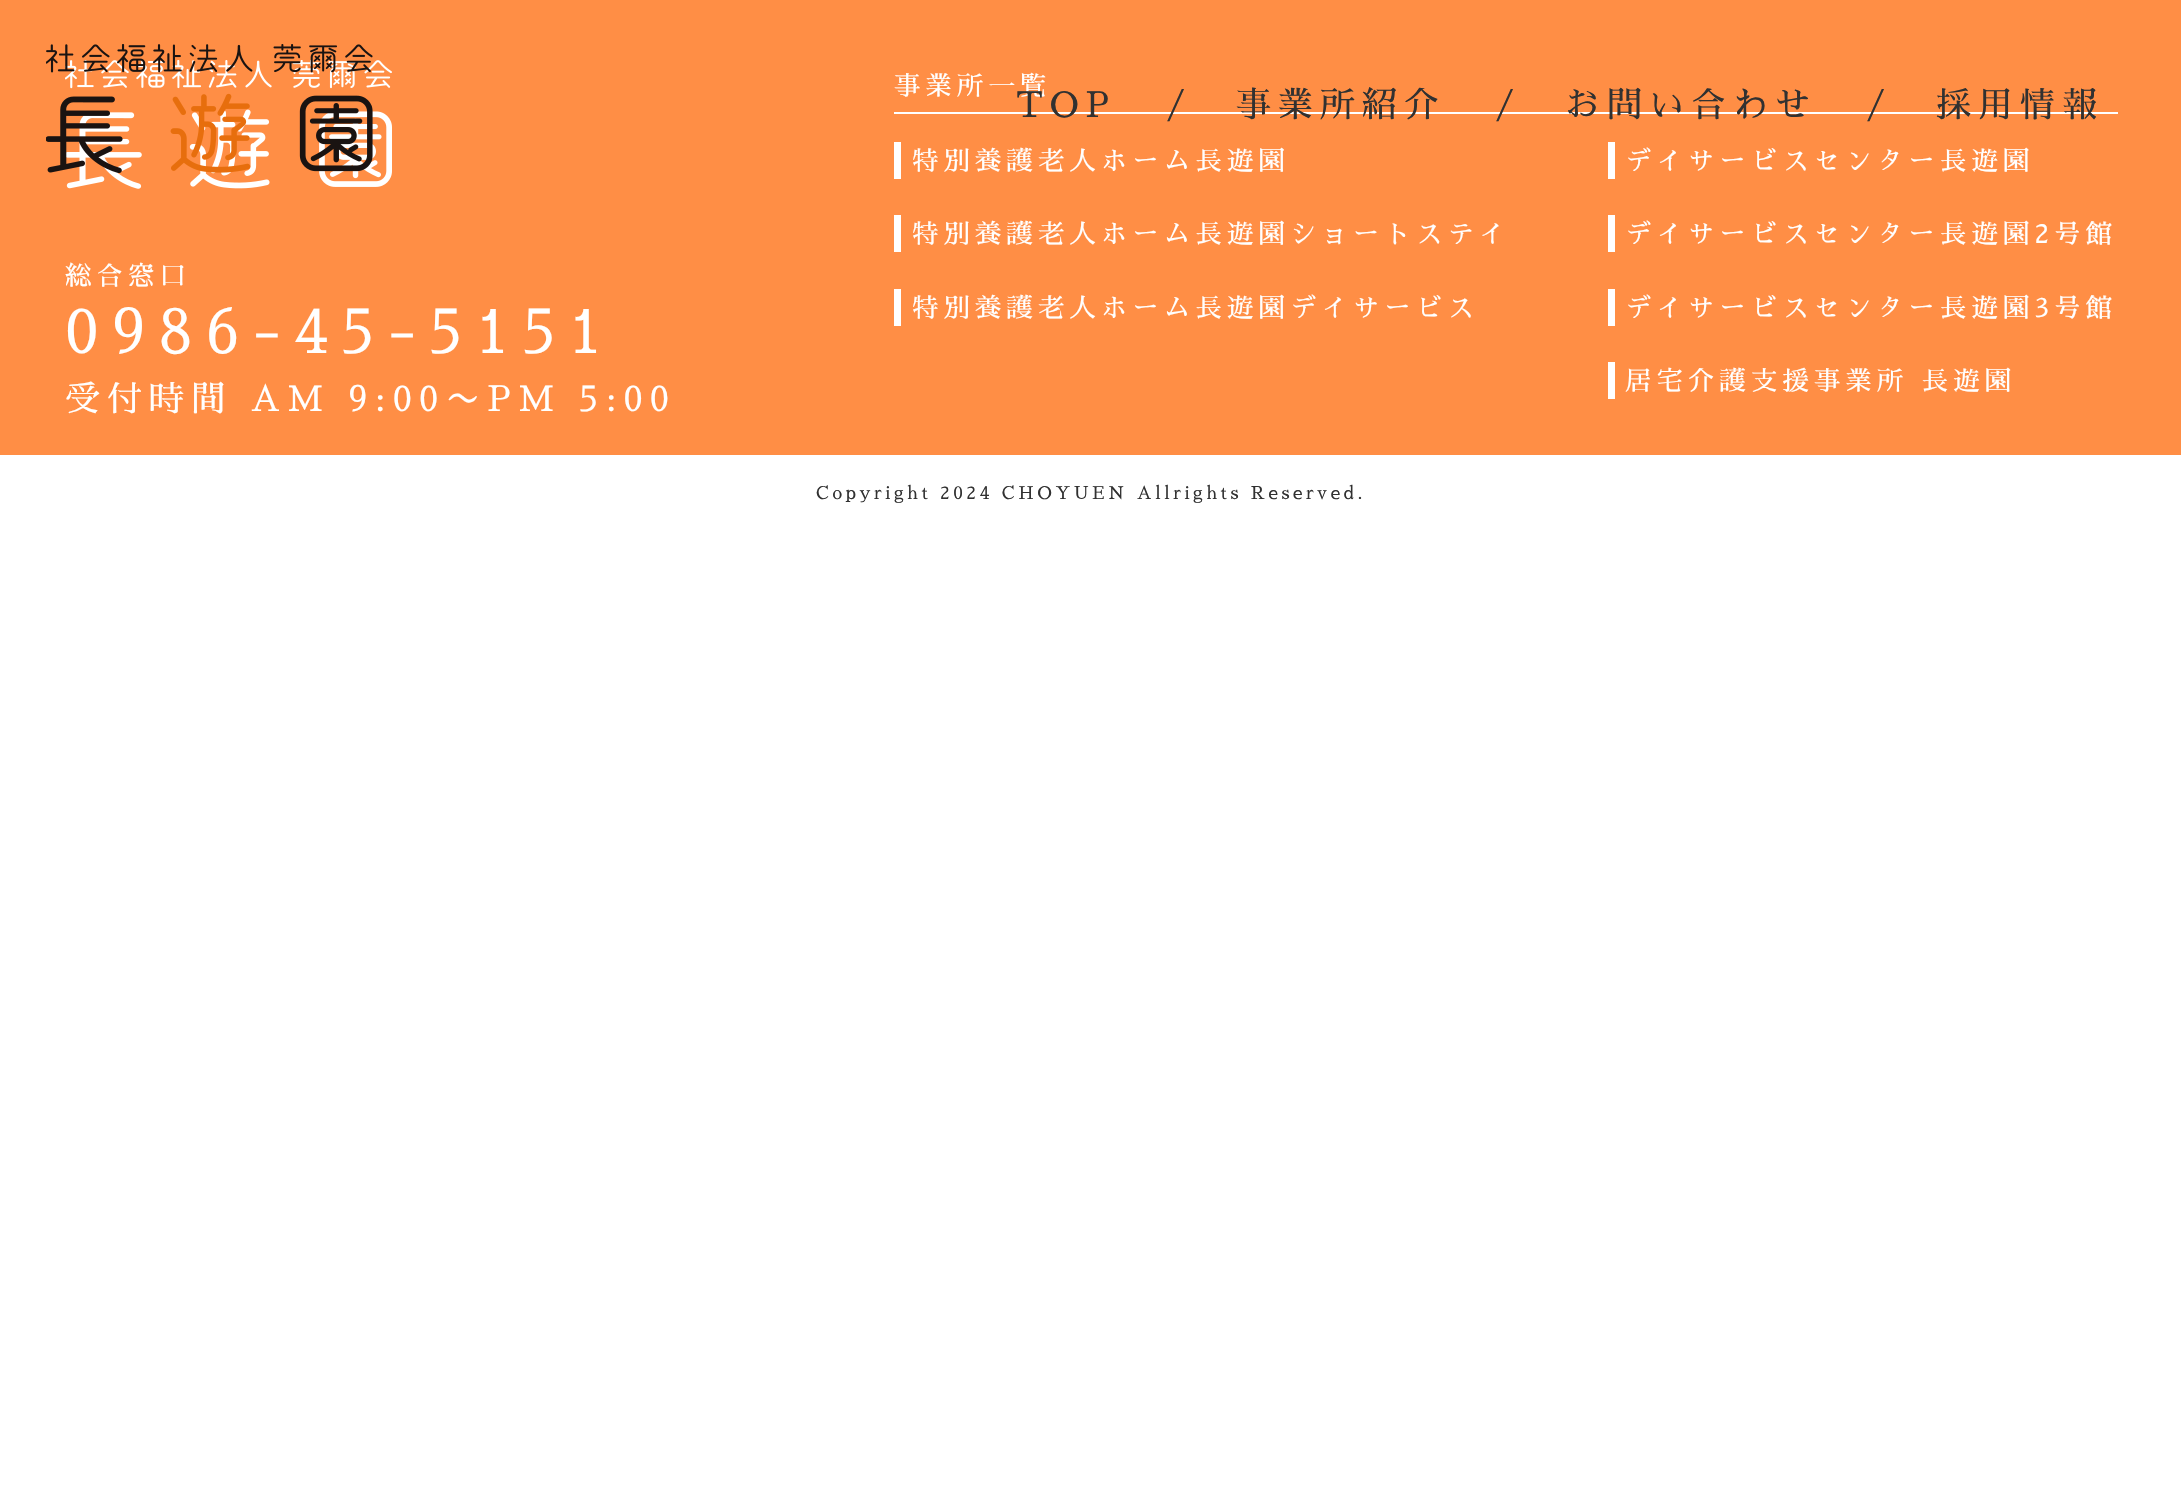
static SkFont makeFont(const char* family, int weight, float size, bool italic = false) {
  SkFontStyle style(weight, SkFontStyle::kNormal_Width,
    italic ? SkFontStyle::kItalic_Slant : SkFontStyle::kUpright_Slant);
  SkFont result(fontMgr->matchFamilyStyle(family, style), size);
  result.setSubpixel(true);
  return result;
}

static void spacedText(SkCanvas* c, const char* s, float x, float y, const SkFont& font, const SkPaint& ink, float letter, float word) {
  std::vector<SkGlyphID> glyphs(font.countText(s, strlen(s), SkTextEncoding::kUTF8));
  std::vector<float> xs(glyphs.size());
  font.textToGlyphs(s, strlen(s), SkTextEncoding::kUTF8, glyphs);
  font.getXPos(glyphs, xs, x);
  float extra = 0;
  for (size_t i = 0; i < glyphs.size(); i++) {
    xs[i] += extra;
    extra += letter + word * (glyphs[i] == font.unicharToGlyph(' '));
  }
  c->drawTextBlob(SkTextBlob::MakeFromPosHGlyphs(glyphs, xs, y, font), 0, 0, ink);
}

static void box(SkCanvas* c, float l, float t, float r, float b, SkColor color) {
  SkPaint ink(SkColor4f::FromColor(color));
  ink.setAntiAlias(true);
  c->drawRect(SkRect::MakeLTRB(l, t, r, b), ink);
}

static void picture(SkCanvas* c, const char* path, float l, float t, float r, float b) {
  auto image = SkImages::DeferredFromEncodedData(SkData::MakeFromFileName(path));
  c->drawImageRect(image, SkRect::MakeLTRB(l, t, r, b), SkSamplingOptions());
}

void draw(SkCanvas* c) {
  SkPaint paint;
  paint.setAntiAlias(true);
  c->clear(0xffffffff);
  box(c, 0, 0, 2181, 455, 0xffff8e45);
  picture(c, "img_01.png", 65, 60, 392, 189);
  SkFont face1 = makeFont("Sawarabi Mincho", 400, 26.25f);
  paint.setColor(0xffffffff);
  spacedText(c, "総合窓口", 65, 285, face1, paint, 5.25f, 0);
  SkFont face2 = makeFont("Sawarabi Mincho", 400, 61.25f);
  spacedText(c, "0986-45-5151", 65, 353, face2, paint, 12.25f, 0);
  SkFont face3 = makeFont("Sawarabi Mincho", 400, 35);
  spacedText(c, "受付時間 AM 9:00〜PM 5:00", 65, 411, face3, paint, 7, 0);
  box(c, 894, 112, 2118, 114, 0xffffffff);
  spacedText(c, "事業所一覧", 894, 95, face1, paint, 5.25f, 0);
  box(c, 894, 142, 901, 179, 0xffffffff);
  spacedText(c, "特別養護老人ホーム長遊園", 912, 170, face1, paint, 5.25f, 0);
  box(c, 894, 215, 901, 252, 0xffffffff);
  spacedText(c, "特別養護老人ホーム長遊園ショートステイ", 912, 243, face1, paint, 5.25f, 0);
  box(c, 894, 289, 901, 326, 0xffffffff);
  spacedText(c, "特別養護老人ホーム長遊園デイサービス", 912, 317, face1, paint, 5.25f, 0);
  box(c, 1608, 142, 1615, 179, 0xffffffff);
  spacedText(c, "デイサービスセンター長遊園", 1625, 170, face1, paint, 5.25f, 0);
  box(c, 1608, 215, 1615, 252, 0xffffffff);
  spacedText(c, "デイサービスセンター長遊園2号館", 1625, 243, face1, paint, 5.25f, 0);
  box(c, 1608, 289, 1615, 326, 0xffffffff);
  spacedText(c, "デイサービスセンター長遊園3号館", 1625, 317, face1, paint, 5.25f, 0);
  box(c, 1608, 362, 1615, 399, 0xffffffff);
  spacedText(c, "居宅介護支援事業所 長遊園", 1625, 390, face1, paint, 5.25f, 0);
  SkFont face4 = makeFont("Sawarabi Mincho", 400, 17.5f);
  paint.setColor(0xff313131);
  spacedText(c, "Copyright 2024 CHOYUEN Allrights Reserved.", 816, 499, face4, paint, 3.5f, 0);
  picture(c, "img_02.png", 46, 44, 373, 173);
  spacedText(c, "TOP", 1016, 117, face3, paint, 7, 0);
  spacedText(c, "/", 1166, 117, face3, paint, 7, 0);
  spacedText(c, "事業所紹介", 1236, 117, face3, paint, 7, 0);
  spacedText(c, "/", 1495, 117, face3, paint, 7, 0);
  spacedText(c, "お問い合わせ", 1565, 117, face3, paint, 7, 0);
  spacedText(c, "/", 1866, 117, face3, paint, 7, 0);
  spacedText(c, "採用情報", 1936, 117, face3, paint, 7, 0);
}
